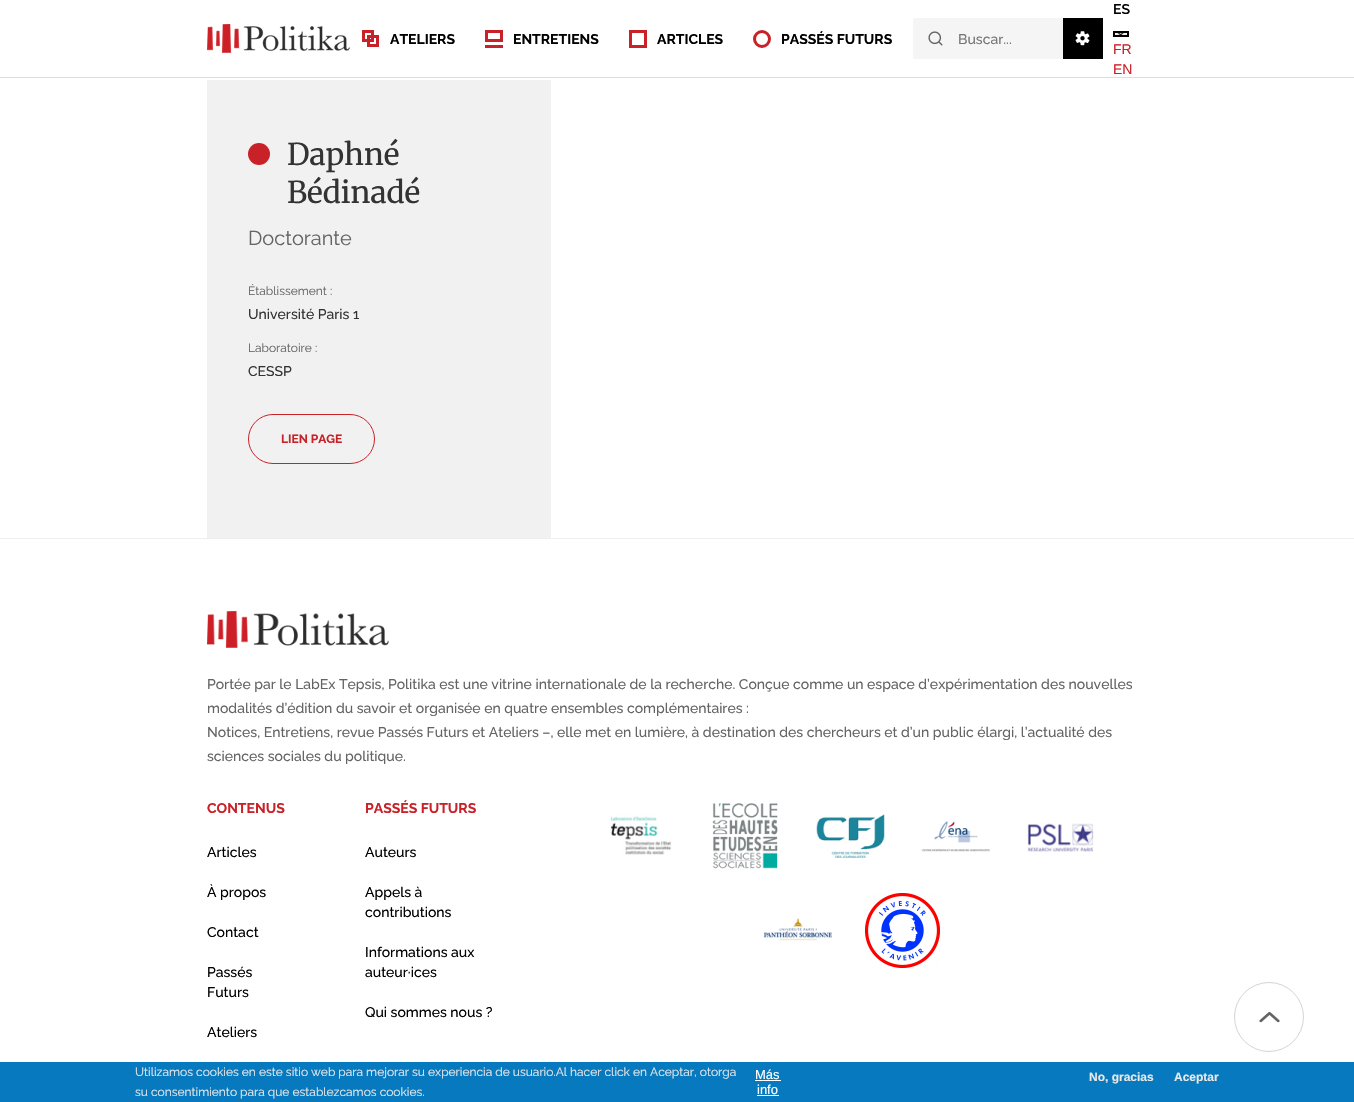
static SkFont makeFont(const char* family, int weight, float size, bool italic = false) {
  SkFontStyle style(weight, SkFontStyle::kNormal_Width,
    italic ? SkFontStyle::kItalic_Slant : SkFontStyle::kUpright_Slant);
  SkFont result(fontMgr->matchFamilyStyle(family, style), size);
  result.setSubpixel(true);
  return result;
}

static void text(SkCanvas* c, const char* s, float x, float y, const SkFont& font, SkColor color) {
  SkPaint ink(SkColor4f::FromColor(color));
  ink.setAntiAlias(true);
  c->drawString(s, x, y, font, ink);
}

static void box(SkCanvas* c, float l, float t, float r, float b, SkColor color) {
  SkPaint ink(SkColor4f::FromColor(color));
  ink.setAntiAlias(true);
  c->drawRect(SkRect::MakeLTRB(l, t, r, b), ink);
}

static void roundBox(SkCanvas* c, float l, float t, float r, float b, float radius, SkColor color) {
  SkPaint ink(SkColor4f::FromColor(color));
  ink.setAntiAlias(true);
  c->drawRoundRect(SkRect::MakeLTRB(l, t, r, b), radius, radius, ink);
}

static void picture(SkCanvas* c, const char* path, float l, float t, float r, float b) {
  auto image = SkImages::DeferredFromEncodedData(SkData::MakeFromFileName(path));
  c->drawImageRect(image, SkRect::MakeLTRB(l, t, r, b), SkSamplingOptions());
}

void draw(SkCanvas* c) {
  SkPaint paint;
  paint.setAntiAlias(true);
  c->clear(0xffffffff);
  box(c, 0, 77, 1354, 78, 0xffdddddd);
  picture(c, "img_01.png", 207, 24, 350, 53);
  paint.setStyle(SkPaint::kStroke_Style);
  paint.setStrokeWidth(3);
  paint.setColor(0xffc82127);
  c->drawRect(SkRect::MakeLTRB(363.5f, 31.5f, 372.5f, 40.5f), paint);
  SkFont face1 = makeFont("Raleway", 700, 14);
  text(c, "ATELIERS", 390, 44, face1, 0xff000000);
  c->drawRect(SkRect::MakeLTRB(368.5f, 36.5f, 377.5f, 45.5f), paint);
  c->drawRect(SkRect::MakeLTRB(486.5f, 31.5f, 501.5f, 40.5f), paint);
  text(c, "ENTRETIENS", 513, 44, face1, 0xff000000);
  box(c, 485, 45, 503, 48, 0xffc82127);
  c->drawRect(SkRect::MakeLTRB(630.5f, 31.5f, 645.5f, 46.5f), paint);
  text(c, "ARTICLES", 657, 44, face1, 0xff000000);
  c->drawCircle(762, 39, 7.5f, paint);
  text(c, "PASSÉS FUTURS", 781, 44, face1, 0xff000000);
  roundBox(c, 913, 18, 1063, 59, 2, 0xfff5f5f5);
  picture(c, "img_02.png", 928, 31, 943, 46);
  SkFont face2 = makeFont("Raleway", 500, 14);
  text(c, "Buscar...", 958, 44, face2, 0xff757575);
  box(c, 1063, 18, 1103, 59, 0xff000000);
  picture(c, "img_03.png", 1075, 31, 1090, 46);
  SkFont face3 = makeFont("Raleway", 600, 14);
  text(c, "ES", 1113, 14, face3, 0xff000000);
  box(c, 1113, 33, 1129, 35, 0xffefefef);
  picture(c, "img_04.png", 1117, 33, 1124, 35);
  paint.setStrokeWidth(2);
  paint.setColor(0xff000000);
  c->drawRect(SkRect::MakeLTRB(1114, 32, 1128, 36), paint);
  SkFont face4 = makeFont("Liberation Sans", 400, 14);
  text(c, "FR", 1113, 54, face4, 0xffc82127);
  text(c, "EN", 1113, 74, face4, 0xffc82127);
  box(c, 207, 80, 551, 538, 0xfff1f1f1);
  paint.setStyle(SkPaint::kFill_Style);
  paint.setColor(0xffc82127);
  c->drawCircle(259, 154, 11, paint);
  SkFont face5 = makeFont("Merriweather", 400, 30);
  text(c, "Daphné", 287, 165, face5, 0xff333333);
  text(c, "Bédinadé", 287, 203, face5, 0xff333333);
  SkFont face6 = makeFont("Raleway", 400, 20);
  text(c, "Doctorante", 248, 245, face6, 0xff646464);
  SkFont face7 = makeFont("Raleway", 400, 12);
  text(c, "Établissement :", 248, 295, face7, 0xff646464);
  text(c, "Université Paris 1", 248, 319, face2, 0xff333333);
  text(c, "Laboratoire :", 248, 352, face7, 0xff646464);
  text(c, "CESSP", 248, 376, face2, 0xff333333);
  paint.setStyle(SkPaint::kStroke_Style);
  paint.setStrokeWidth(1);
  c->drawRoundRect(SkRect::MakeLTRB(248.5f, 414.5f, 374.5f, 463.5f), 24.5f, 24.5f, paint);
  SkFont face8 = makeFont("Raleway", 700, 12);
  text(c, "LIEN PAGE", 281, 443, face8, 0xffc82127);
  box(c, 0, 538, 1354, 539, 0xffeeeeee);
  picture(c, "img_05.png", 207, 611, 389, 648);
  text(c, "Portée par le LabEx Tepsis, Politika est une vitrine internationale de la recherche. Conçue comme un espace d’expérimentation des nouvelles", 207, 689, face2, 0xff646464);
  text(c, "modalités d’édition du savoir et organisée en quatre ensembles complémentaires :", 207, 713, face2, 0xff646464);
  text(c, "Notices, Entretiens, revue Passés Futurs et Ateliers –, elle met en lumière, à destination des chercheurs et d’un public élargi, l’actualité des", 207, 737, face2, 0xff646464);
  text(c, "sciences sociales du politique.", 207, 761, face2, 0xff646464);
  text(c, "CONTENUS", 207, 813, face1, 0xffc82127);
  text(c, "Articles", 207, 857, face2, 0xff000000);
  text(c, "À propos", 207, 897, face2, 0xff000000);
  text(c, "Contact", 207, 937, face2, 0xff000000);
  text(c, "Passés", 207, 977, face2, 0xff000000);
  text(c, "Futurs", 207, 997, face2, 0xff000000);
  text(c, "Ateliers", 207, 1037, face2, 0xff000000);
  text(c, "PASSÉS FUTURS", 365, 813, face1, 0xffc82127);
  text(c, "Auteurs", 365, 857, face2, 0xff000000);
  text(c, "Appels à", 365, 897, face2, 0xff000000);
  text(c, "contributions", 365, 917, face2, 0xff000000);
  text(c, "Informations aux", 365, 957, face2, 0xff000000);
  text(c, "auteur·ices", 365, 977, face2, 0xff000000);
  text(c, "Qui sommes nous ?", 365, 1017, face2, 0xff000000);
  picture(c, "img_06.png", 610, 814, 672, 855);
  picture(c, "img_07.png", 712, 803, 778, 869);
  picture(c, "img_08.png", 816, 814, 885, 858);
  picture(c, "img_09.png", 921, 821, 990, 852);
  picture(c, "img_10.png", 1025, 823, 1094, 852);
  picture(c, "img_11.png", 763, 918, 833, 941);
  picture(c, "img_12.png", 865, 893, 940, 968);
  picture(c, "img_13.png", 1259, 1012, 1280, 1023);
  paint.setColor(0xffd4d4d4);
  c->drawCircle(1269, 1017, 34.5f, paint);
  box(c, 0, 1062, 1354, 1102, 0xff0779bf);
  text(c, "Utilizamos cookies en este sitio web para mejorar su experiencia de usuario.Al hacer click en Aceptar, otorga", 135, 1076, face7, 0xffe8e8e8);
  SkFont face9 = makeFont("Liberation Sans", 400, 13);
  text(c, "Más", 755, 1079, face9, 0xffffffff);
  box(c, 755, 1080, 781, 1081, 0xffffffff);
  text(c, "info", 757, 1094, face9, 0xffffffff);
  box(c, 757, 1095, 779, 1096, 0xffffffff);
  text(c, "su consentimiento para que establezcamos cookies.", 135, 1096, face7, 0xffe8e8e8);
  SkFont face10 = makeFont("Liberation Sans", 700, 12);
  text(c, "No, gracias", 1089, 1081, face10, 0xffe8e8e8);
  text(c, "Aceptar", 1174, 1081, face10, 0xffe8e8e8);
}
